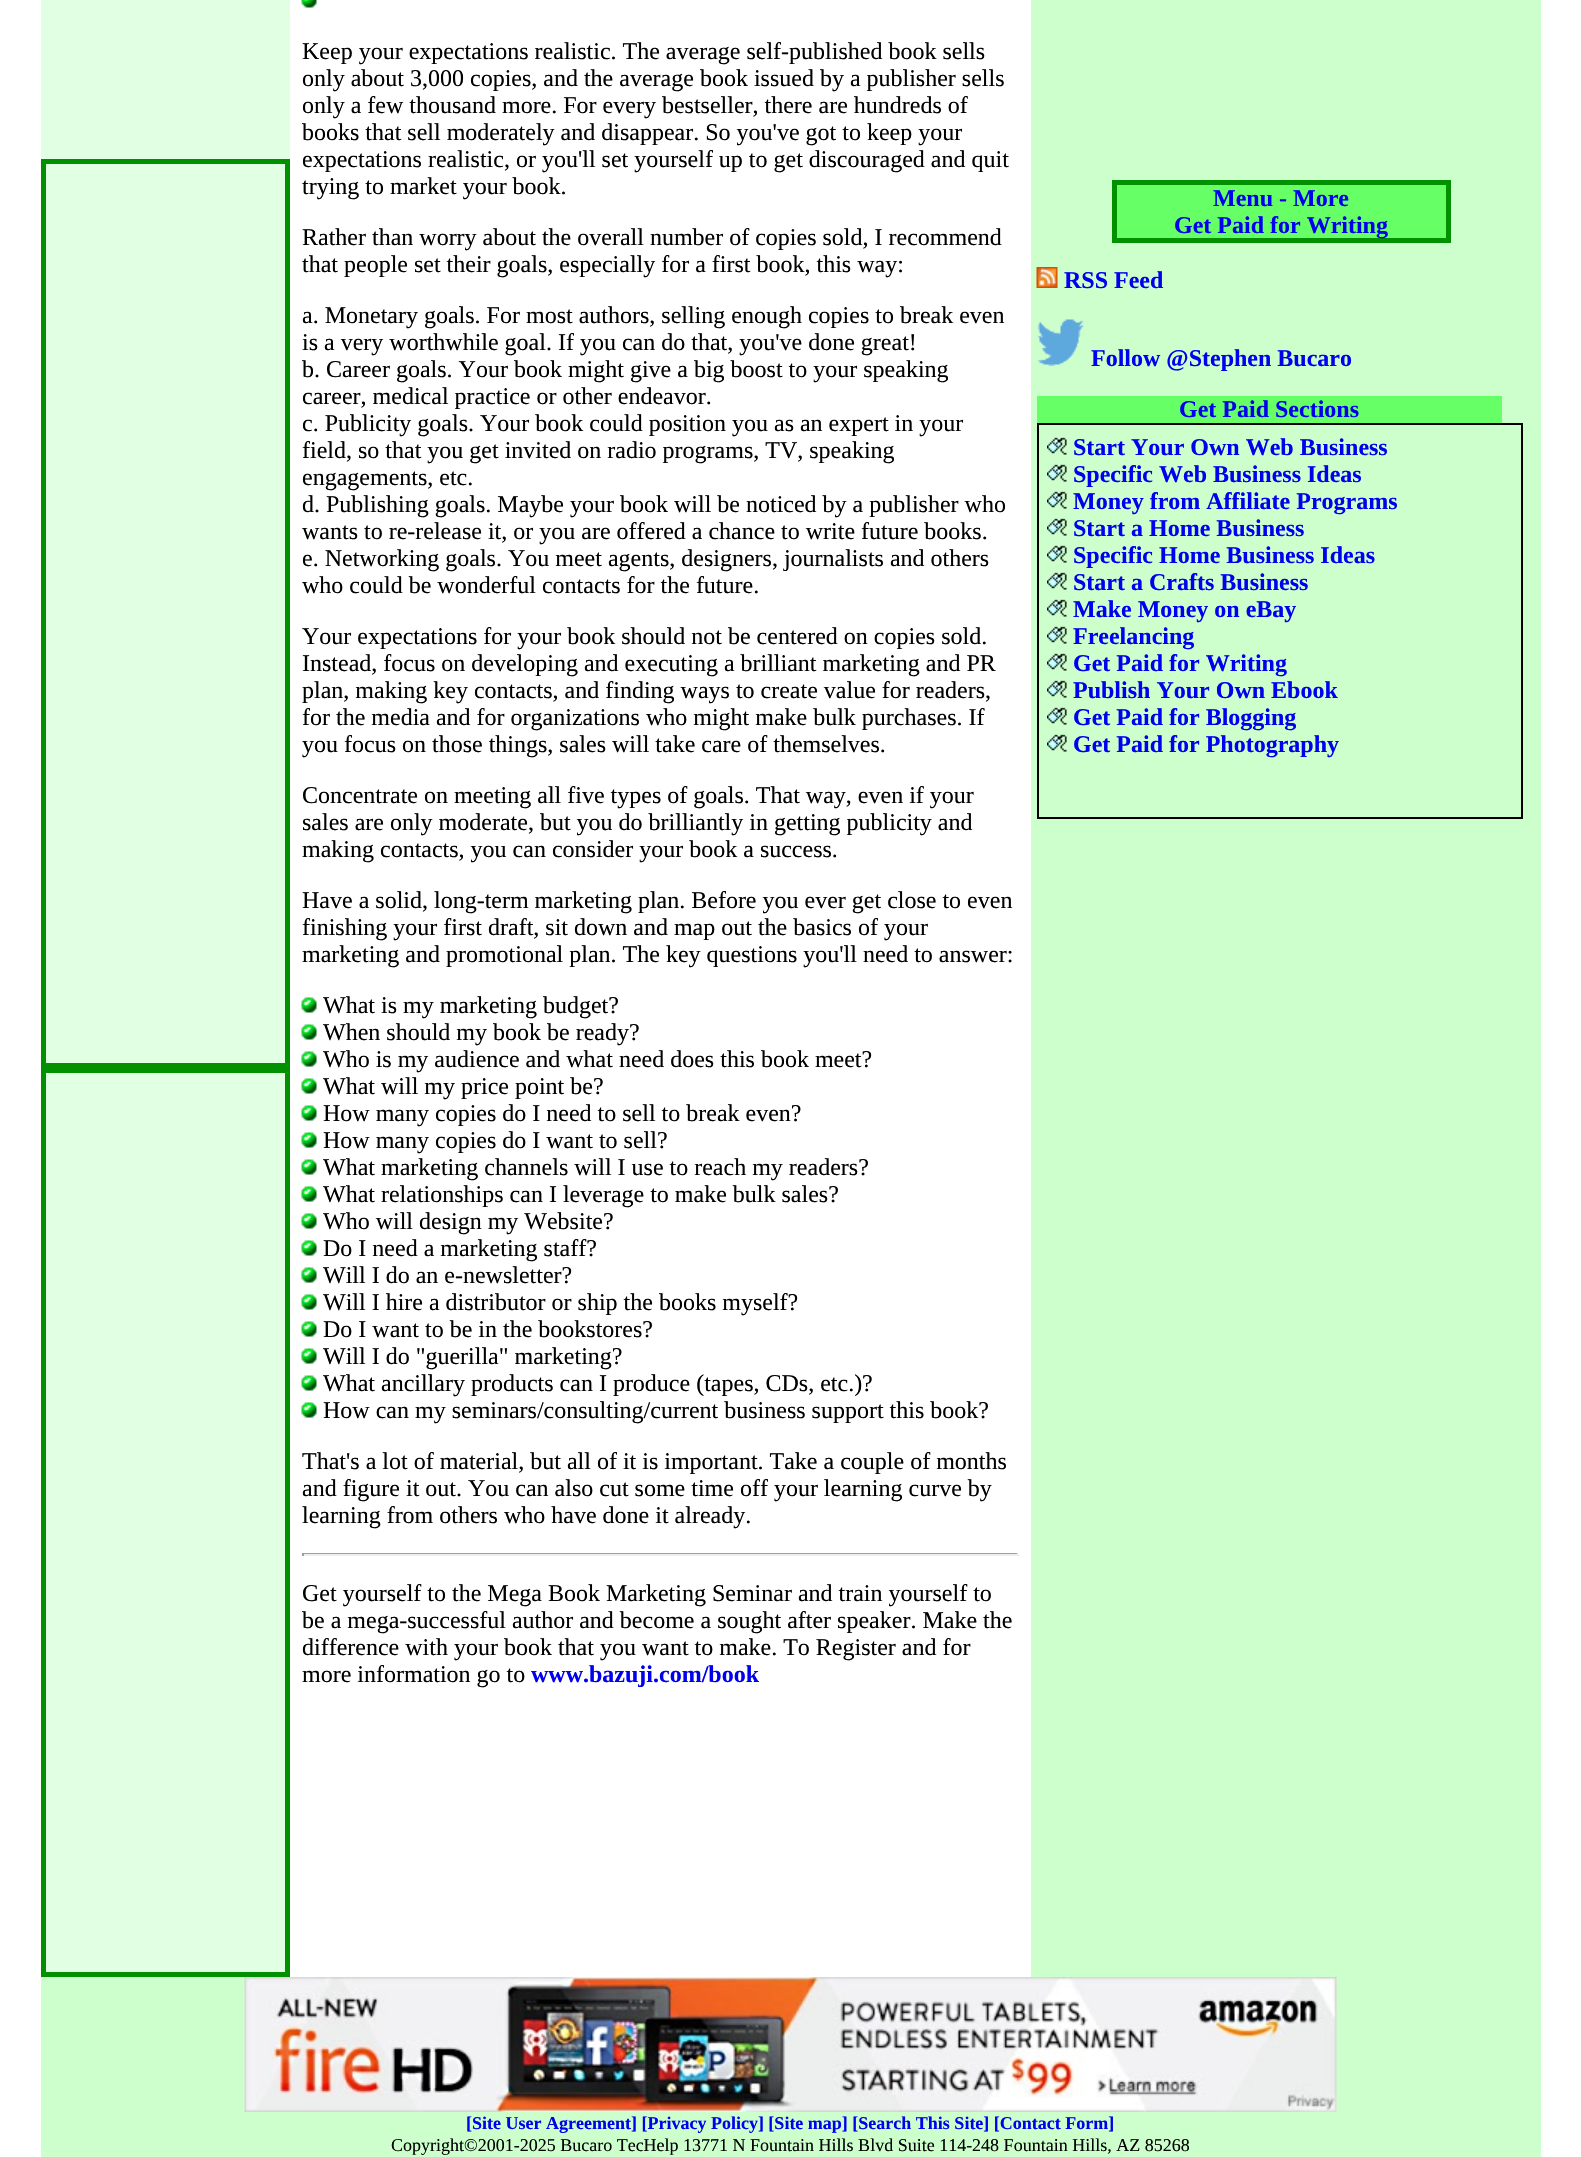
static SkFont makeFont(const char* family, int weight, float size, bool italic = false) {
  SkFontStyle style(weight, SkFontStyle::kNormal_Width,
    italic ? SkFontStyle::kItalic_Slant : SkFontStyle::kUpright_Slant);
  SkFont result(fontMgr->matchFamilyStyle(family, style), size);
  result.setSubpixel(true);
  return result;
}

static void text(SkCanvas* c, const char* s, float x, float y, const SkFont& font, SkColor color) {
  SkPaint ink(SkColor4f::FromColor(color));
  ink.setAntiAlias(true);
  c->drawString(s, x, y, font, ink);
}

static void box(SkCanvas* c, float l, float t, float r, float b, SkColor color) {
  SkPaint ink(SkColor4f::FromColor(color));
  ink.setAntiAlias(true);
  c->drawRect(SkRect::MakeLTRB(l, t, r, b), ink);
}

static void picture(SkCanvas* c, const char* path, float l, float t, float r, float b) {
  auto image = SkImages::DeferredFromEncodedData(SkData::MakeFromFileName(path));
  c->drawImageRect(image, SkRect::MakeLTRB(l, t, r, b), SkSamplingOptions());
}

void draw(SkCanvas* c) {
  SkPaint paint;
  paint.setAntiAlias(true);
  c->clear(0xffffffff);
  box(c, 41, 0, 290, 1972, 0xffe0ffe3);
  paint.setStyle(SkPaint::kStroke_Style);
  paint.setStrokeWidth(5);
  paint.setColor(0xff009000);
  c->drawRect(SkRect::MakeLTRB(43.5f, 161.5f, 287.5f, 1065.5f), paint);
  c->drawRect(SkRect::MakeLTRB(43.5f, 1070.5f, 287.5f, 1974.5f), paint);
  picture(c, "img_01.png", 301, 0, 317, 8);
  SkFont face1 = makeFont("Liberation Serif", 400, 24);
  text(c, "Keep your expectations realistic. The average self-published book sells", 302, 59, face1, 0xff000000);
  text(c, "only about 3,000 copies, and the average book issued by a publisher sells", 302, 86, face1, 0xff000000);
  text(c, "only a few thousand more. For every bestseller, there are hundreds of", 302, 113, face1, 0xff000000);
  text(c, "books that sell moderately and disappear. So you've got to keep your", 302, 140, face1, 0xff000000);
  text(c, "expectations realistic, or you'll set yourself up to get discouraged and quit", 302, 167, face1, 0xff000000);
  text(c, "trying to market your book.", 302, 194, face1, 0xff000000);
  text(c, "Rather than worry about the overall number of copies sold, I recommend", 302, 245, face1, 0xff000000);
  text(c, "that people set their goals, especially for a first book, this way:", 302, 272, face1, 0xff000000);
  text(c, "a. Monetary goals. For most authors, selling enough copies to break even", 302, 323, face1, 0xff000000);
  text(c, "is a very worthwhile goal. If you can do that, you've done great!", 302, 350, face1, 0xff000000);
  text(c, "b. Career goals. Your book might give a big boost to your speaking", 302, 377, face1, 0xff000000);
  text(c, "career, medical practice or other endeavor.", 302, 404, face1, 0xff000000);
  text(c, "c. Publicity goals. Your book could position you as an expert in your", 302, 431, face1, 0xff000000);
  text(c, "field, so that you get invited on radio programs, TV, speaking", 302, 458, face1, 0xff000000);
  text(c, "engagements, etc.", 302, 485, face1, 0xff000000);
  text(c, "d. Publishing goals. Maybe your book will be noticed by a publisher who", 302, 512, face1, 0xff000000);
  text(c, "wants to re-release it, or you are offered a chance to write future books.", 302, 539, face1, 0xff000000);
  text(c, "e. Networking goals. You meet agents, designers, journalists and others", 302, 566, face1, 0xff000000);
  text(c, "who could be wonderful contacts for the future.", 302, 593, face1, 0xff000000);
  text(c, "Your expectations for your book should not be centered on copies sold.", 302, 644, face1, 0xff000000);
  text(c, "Instead, focus on developing and executing a brilliant marketing and PR", 302, 671, face1, 0xff000000);
  text(c, "plan, making key contacts, and finding ways to create value for readers,", 302, 698, face1, 0xff000000);
  text(c, "for the media and for organizations who might make bulk purchases. If", 302, 725, face1, 0xff000000);
  text(c, "you focus on those things, sales will take care of themselves.", 302, 752, face1, 0xff000000);
  text(c, "Concentrate on meeting all five types of goals. That way, even if your", 302, 803, face1, 0xff000000);
  text(c, "sales are only moderate, but you do brilliantly in getting publicity and", 302, 830, face1, 0xff000000);
  text(c, "making contacts, you can consider your book a success.", 302, 857, face1, 0xff000000);
  text(c, "Have a solid, long-term marketing plan. Before you ever get close to even", 302, 908, face1, 0xff000000);
  text(c, "finishing your first draft, sit down and map out the basics of your", 302, 935, face1, 0xff000000);
  text(c, "marketing and promotional plan. The key questions you'll need to answer:", 302, 962, face1, 0xff000000);
  picture(c, "img_02.png", 301, 997, 317, 1013);
  text(c, "What is my marketing budget?", 323, 1013, face1, 0xff000000);
  picture(c, "img_02.png", 301, 1024, 317, 1040);
  text(c, "When should my book be ready?", 323, 1040, face1, 0xff000000);
  picture(c, "img_02.png", 301, 1051, 317, 1067);
  text(c, "Who is my audience and what need does this book meet?", 323, 1067, face1, 0xff000000);
  picture(c, "img_02.png", 301, 1078, 317, 1094);
  text(c, "What will my price point be?", 323, 1094, face1, 0xff000000);
  picture(c, "img_02.png", 301, 1105, 317, 1121);
  text(c, "How many copies do I need to sell to break even?", 323, 1121, face1, 0xff000000);
  picture(c, "img_02.png", 301, 1132, 317, 1148);
  text(c, "How many copies do I want to sell?", 323, 1148, face1, 0xff000000);
  picture(c, "img_02.png", 301, 1159, 317, 1175);
  text(c, "What marketing channels will I use to reach my readers?", 323, 1175, face1, 0xff000000);
  picture(c, "img_02.png", 301, 1186, 317, 1202);
  text(c, "What relationships can I leverage to make bulk sales?", 323, 1202, face1, 0xff000000);
  picture(c, "img_02.png", 301, 1213, 317, 1229);
  text(c, "Who will design my Website?", 323, 1229, face1, 0xff000000);
  picture(c, "img_02.png", 301, 1240, 317, 1256);
  text(c, "Do I need a marketing staff?", 323, 1256, face1, 0xff000000);
  picture(c, "img_02.png", 301, 1267, 317, 1283);
  text(c, "Will I do an e-newsletter?", 323, 1283, face1, 0xff000000);
  picture(c, "img_02.png", 301, 1294, 317, 1310);
  text(c, "Will I hire a distributor or ship the books myself?", 323, 1310, face1, 0xff000000);
  picture(c, "img_02.png", 301, 1321, 317, 1337);
  text(c, "Do I want to be in the bookstores?", 323, 1337, face1, 0xff000000);
  picture(c, "img_02.png", 301, 1348, 317, 1364);
  text(c, "Will I do \"guerilla\" marketing?", 323, 1364, face1, 0xff000000);
  picture(c, "img_02.png", 301, 1375, 317, 1391);
  text(c, "What ancillary products can I produce (tapes, CDs, etc.)?", 323, 1391, face1, 0xff000000);
  picture(c, "img_02.png", 301, 1402, 317, 1418);
  text(c, "How can my seminars/consulting/current business support this book?", 323, 1418, face1, 0xff000000);
  text(c, "That's a lot of material, but all of it is important. Take a couple of months", 302, 1469, face1, 0xff000000);
  text(c, "and figure it out. You can also cut some time off your learning curve by", 302, 1496, face1, 0xff000000);
  text(c, "learning from others who have done it already.", 302, 1523, face1, 0xff000000);
  box(c, 302, 1553, 1019, 1554, 0xff9f9f9f);
  box(c, 1017, 1553, 1019, 1556, 0xffeeeeee);
  box(c, 302, 1554, 1019, 1556, 0xffeeeeee);
  box(c, 302, 1553, 304, 1556, 0xff9f9f9f);
  text(c, "Get yourself to the Mega Book Marketing Seminar and train yourself to", 302, 1601, face1, 0xff000000);
  text(c, "be a mega-successful author and become a sought after speaker. Make the", 302, 1628, face1, 0xff000000);
  text(c, "difference with your book that you want to make. To Register and for", 302, 1655, face1, 0xff000000);
  text(c, "more information go to", 302, 1682, face1, 0xff000000);
  SkFont face2 = makeFont("Liberation Serif", 700, 24);
  text(c, "www.bazuji.com/book", 531, 1682, face2, 0xff0000ee);
  box(c, 1031, 0, 1541, 1977, 0xffccffcc);
  paint.setStyle(SkPaint::kFill_Style);
  paint.setColor(0xff66ff66);
  c->drawRect(SkRect::MakeLTRB(1114.5f, 182.5f, 1448.5f, 240.5f), paint);
  paint.setStyle(SkPaint::kStroke_Style);
  paint.setColor(0xff009000);
  c->drawRect(SkRect::MakeLTRB(1114.5f, 182.5f, 1448.5f, 240.5f), paint);
  text(c, "Menu - More", 1213, 206, face2, 0xff0000ee);
  text(c, "Get Paid for Writing", 1174, 233, face2, 0xff0000ee);
  picture(c, "img_03.png", 1036, 267, 1058, 288);
  text(c, "RSS Feed", 1064, 288, face2, 0xff0000ee);
  picture(c, "img_04.png", 1037, 319, 1084, 366);
  text(c, "Follow @Stephen Bucaro", 1091, 366, face2, 0xff0000ee);
  box(c, 1037, 396, 1502, 423, 0xff66ff66);
  text(c, "Get Paid Sections", 1179, 417, face2, 0xff0000ee);
  paint.setStrokeWidth(2);
  paint.setColor(0xff000000);
  c->drawRect(SkRect::MakeLTRB(1038, 424, 1522, 818), paint);
  picture(c, "img_05.png", 1047, 437, 1067, 455);
  text(c, "Start Your Own Web Business", 1073, 455, face2, 0xff0000ee);
  picture(c, "img_05.png", 1047, 464, 1067, 482);
  text(c, "Specific Web Business Ideas", 1073, 482, face2, 0xff0000ee);
  picture(c, "img_05.png", 1047, 491, 1067, 509);
  text(c, "Money from Affiliate Programs", 1073, 509, face2, 0xff0000ee);
  picture(c, "img_05.png", 1047, 518, 1067, 536);
  text(c, "Start a Home Business", 1073, 536, face2, 0xff0000ee);
  picture(c, "img_05.png", 1047, 545, 1067, 563);
  text(c, "Specific Home Business Ideas", 1073, 563, face2, 0xff0000ee);
  picture(c, "img_05.png", 1047, 572, 1067, 590);
  text(c, "Start a Crafts Business", 1073, 590, face2, 0xff0000ee);
  picture(c, "img_05.png", 1047, 599, 1067, 617);
  text(c, "Make Money on eBay", 1073, 617, face2, 0xff0000ee);
  picture(c, "img_05.png", 1047, 626, 1067, 644);
  text(c, "Freelancing", 1073, 644, face2, 0xff0000ee);
  picture(c, "img_05.png", 1047, 653, 1067, 671);
  text(c, "Get Paid for Writing", 1073, 671, face2, 0xff0000ee);
  picture(c, "img_05.png", 1047, 680, 1067, 698);
  text(c, "Publish Your Own Ebook", 1073, 698, face2, 0xff0000ee);
  picture(c, "img_05.png", 1047, 707, 1067, 725);
  text(c, "Get Paid for Blogging", 1073, 725, face2, 0xff0000ee);
  picture(c, "img_05.png", 1047, 734, 1067, 752);
  text(c, "Get Paid for Photography", 1073, 752, face2, 0xff0000ee);
  box(c, 41, 1977, 1541, 2157, 0xffccffcc);
  picture(c, "img_06.png", 244, 1977, 1337, 2112);
  SkFont face3 = makeFont("Liberation Serif", 700, 18);
  text(c, "[Site User Agreement] [Privacy Policy] [Site map] [Search This Site] [Contact Form]", 466, 2129, face3, 0xff0000ee);
  SkFont face4 = makeFont("Liberation Serif", 400, 18);
  text(c, "Copyright©2001-2025 Bucaro TecHelp 13771 N Fountain Hills Blvd Suite 114-248 Fountain Hills, AZ 85268", 391, 2151, face4, 0xff000000);
}
